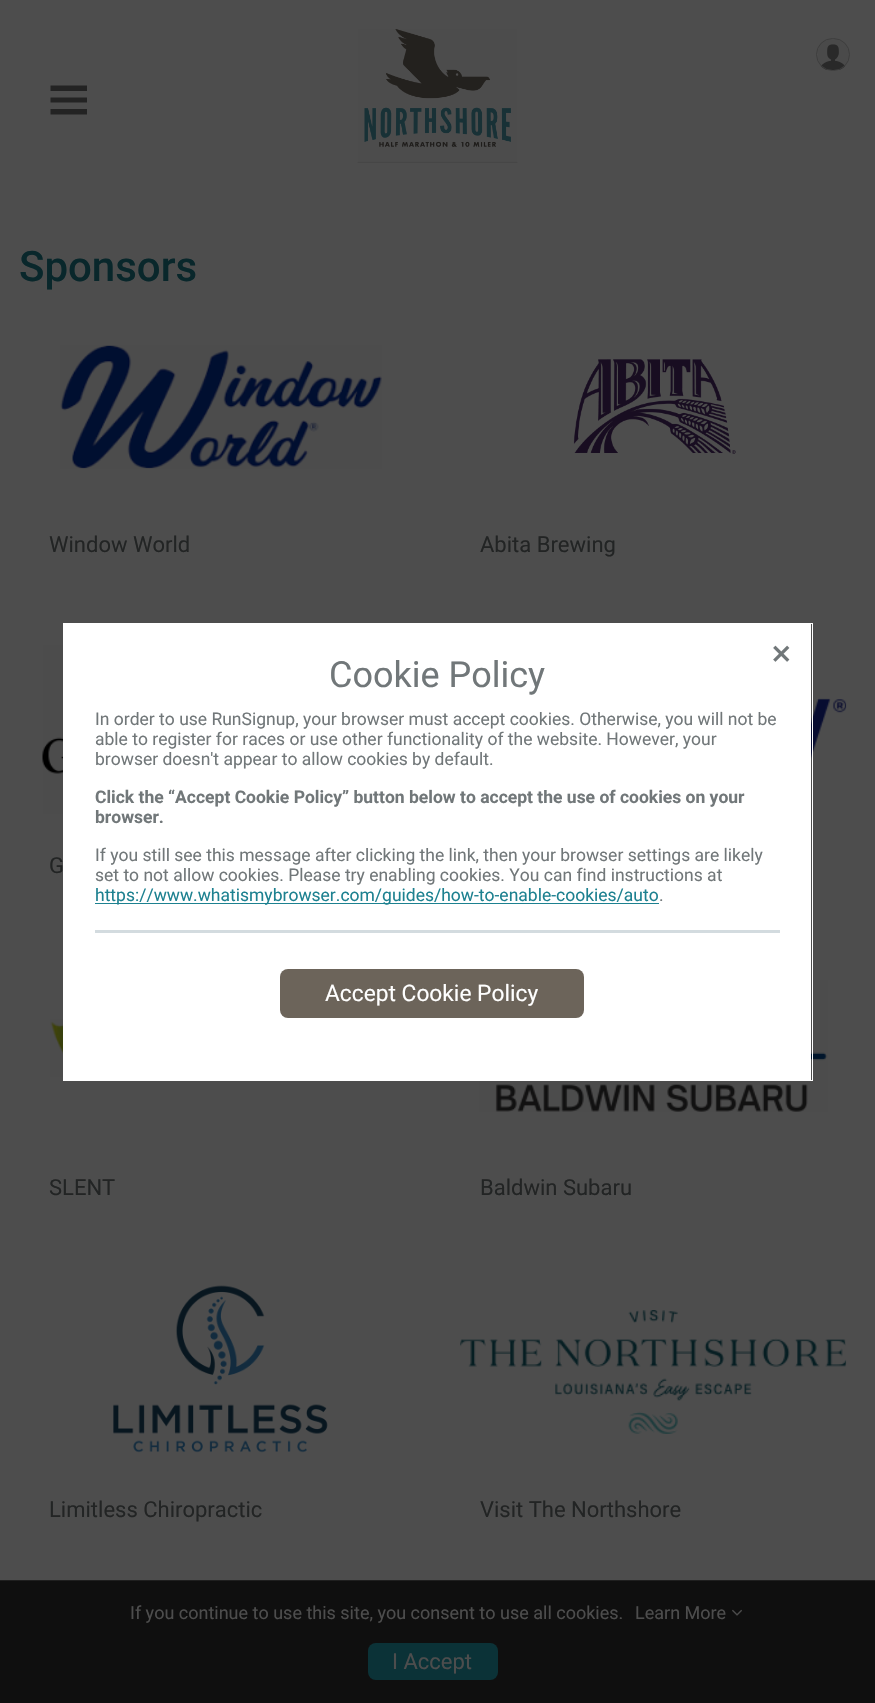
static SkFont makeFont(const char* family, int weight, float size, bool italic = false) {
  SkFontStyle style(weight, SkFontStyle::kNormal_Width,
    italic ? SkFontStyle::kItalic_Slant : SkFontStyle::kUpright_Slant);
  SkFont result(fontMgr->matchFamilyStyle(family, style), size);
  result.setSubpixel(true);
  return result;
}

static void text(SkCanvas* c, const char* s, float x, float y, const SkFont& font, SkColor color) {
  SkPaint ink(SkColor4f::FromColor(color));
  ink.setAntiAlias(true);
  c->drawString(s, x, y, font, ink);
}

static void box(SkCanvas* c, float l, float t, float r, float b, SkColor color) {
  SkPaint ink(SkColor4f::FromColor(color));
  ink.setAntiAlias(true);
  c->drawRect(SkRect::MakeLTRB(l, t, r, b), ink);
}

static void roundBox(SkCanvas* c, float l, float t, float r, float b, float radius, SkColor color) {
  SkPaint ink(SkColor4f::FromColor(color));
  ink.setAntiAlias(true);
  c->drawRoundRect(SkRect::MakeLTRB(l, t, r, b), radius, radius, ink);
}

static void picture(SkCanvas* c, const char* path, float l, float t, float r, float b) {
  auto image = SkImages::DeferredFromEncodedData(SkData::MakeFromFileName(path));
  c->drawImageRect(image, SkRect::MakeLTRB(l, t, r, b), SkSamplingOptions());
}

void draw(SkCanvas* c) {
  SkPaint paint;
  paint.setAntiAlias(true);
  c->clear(0xff4d4d4d);
  picture(c, "img_01.png", 357, 29, 518, 163);
  picture(c, "img_02.png", 818, 39, 849, 70);
  paint.setStyle(SkPaint::kStroke_Style);
  paint.setStrokeWidth(1);
  paint.setColor(0xff3d3d3d);
  c->drawRoundRect(SkRect::MakeLTRB(816.5f, 38.5f, 849.5f, 70.5f), 16, 16, paint);
  paint.setStyle(SkPaint::kFill_Style);
  paint.setColor(0xff232323);
  c->drawPath(SkPathBuilder().moveTo(87, 85.5f).lineTo(87, 91).lineTo(50.5f, 91).lineTo(50.5f, 85.5f).close().moveTo(87, 97.5f).lineTo(87, 102.5f).lineTo(50.5f, 102.5f).lineTo(50.5f, 97.5f).close().moveTo(87, 109).lineTo(87, 114.5f).lineTo(50.5f, 114.5f).lineTo(50.5f, 109).close().detach(), paint);
  SkFont face1 = makeFont("Roboto", 500, 42);
  text(c, "Sponsors", 19, 281, face1, 0xff09272b);
  picture(c, "img_03.png", 60, 345, 382, 469);
  SkFont face2 = makeFont("Roboto", 400, 22);
  text(c, "Window World", 49, 552, face2, 0xff222424);
  picture(c, "img_04.png", 573, 359, 736, 454);
  text(c, "Abita Brewing", 480, 552, face2, 0xff222424);
  picture(c, "img_05.png", 811, 698, 847, 759);
  picture(c, "img_06.png", 42, 645, 63, 814);
  text(c, "G", 49, 873, face2, 0xff222424);
  picture(c, "img_07.png", 50, 1019, 63, 1077);
  text(c, "SLENT", 49, 1195, face2, 0xff222424);
  picture(c, "img_08.png", 479, 980, 828, 1112);
  text(c, "Baldwin Subaru", 480, 1195, face2, 0xff222424);
  picture(c, "img_09.png", 113, 1285, 328, 1453);
  text(c, "Limitless Chiropractic", 49, 1517, face2, 0xff222424);
  picture(c, "img_10.png", 460, 1310, 847, 1434);
  text(c, "Visit The Northshore", 480, 1517, face2, 0xff222424);
  paint.setStyle(SkPaint::kStroke_Style);
  paint.setColor(0xffffffff);
  c->drawRect(SkRect::MakeLTRB(63.5f, 623.5f, 812.5f, 1080.5f), paint);
  box(c, 64, 624, 811, 1080, 0xffffffff);
  picture(c, "img_11.png", 773, 645, 790, 662);
  SkFont face3 = makeFont("Roboto", 400, 36);
  text(c, "Cookie Policy", 329, 687, face3, 0xff717779);
  SkFont face4 = makeFont("Roboto", 400, 17.5f);
  text(c, "In order to use RunSignup, your browser must accept cookies. Otherwise, you will not be", 95, 725, face4, 0xff717779);
  text(c, "able to register for races or use other functionality of the website. However, your", 95, 745, face4, 0xff717779);
  text(c, "browser doesn't appear to allow cookies by default.", 95, 765, face4, 0xff717779);
  SkFont face5 = makeFont("Roboto", 700, 17.5f);
  text(c, "Click the “Accept Cookie Policy” button below to accept the use of cookies on your", 95, 803, face5, 0xff717779);
  text(c, "browser.", 95, 823, face5, 0xff717779);
  text(c, "If you still see this message after clicking the link, then your browser settings are likely", 95, 861, face4, 0xff717779);
  text(c, "set to not allow cookies. Please try enabling cookies. You can find instructions at", 95, 881, face4, 0xff717779);
  box(c, 95, 903, 659, 904, 0xff1d8190);
  text(c, "https://www.whatismybrowser.com/guides/how-to-enable-cookies/auto", 95, 901, face4, 0xff1d8190);
  text(c, ".", 659, 901, face4, 0xff717779);
  box(c, 95, 930, 780, 933, 0xffd3dbdf);
  roundBox(c, 280, 969, 584, 1018, 8, 0xff6c645a);
  SkFont face6 = makeFont("Roboto", 400, 22.75f);
  text(c, "Accept Cookie Policy", 325, 1001, face6, 0xffffffff);
  box(c, 0, 1581, 875, 1703, 0xff0f0f0f);
  box(c, 0, 1580, 875, 1581, 0xff1f1f1f);
  SkFont face7 = makeFont("Roboto", 400, 18);
  text(c, "If you continue to use this site, you consent to use all cookies.", 130, 1619, face7, 0xff4d4d4d);
  text(c, "Learn More", 635, 1619, face7, 0xff4d4d4d);
  picture(c, "img_12.png", 732, 1609, 742, 1616);
  roundBox(c, 368, 1643, 498, 1680, 8, 0xff0b3237);
  text(c, "I Accept", 392, 1669, face2, 0xff4d4d4d);
}
